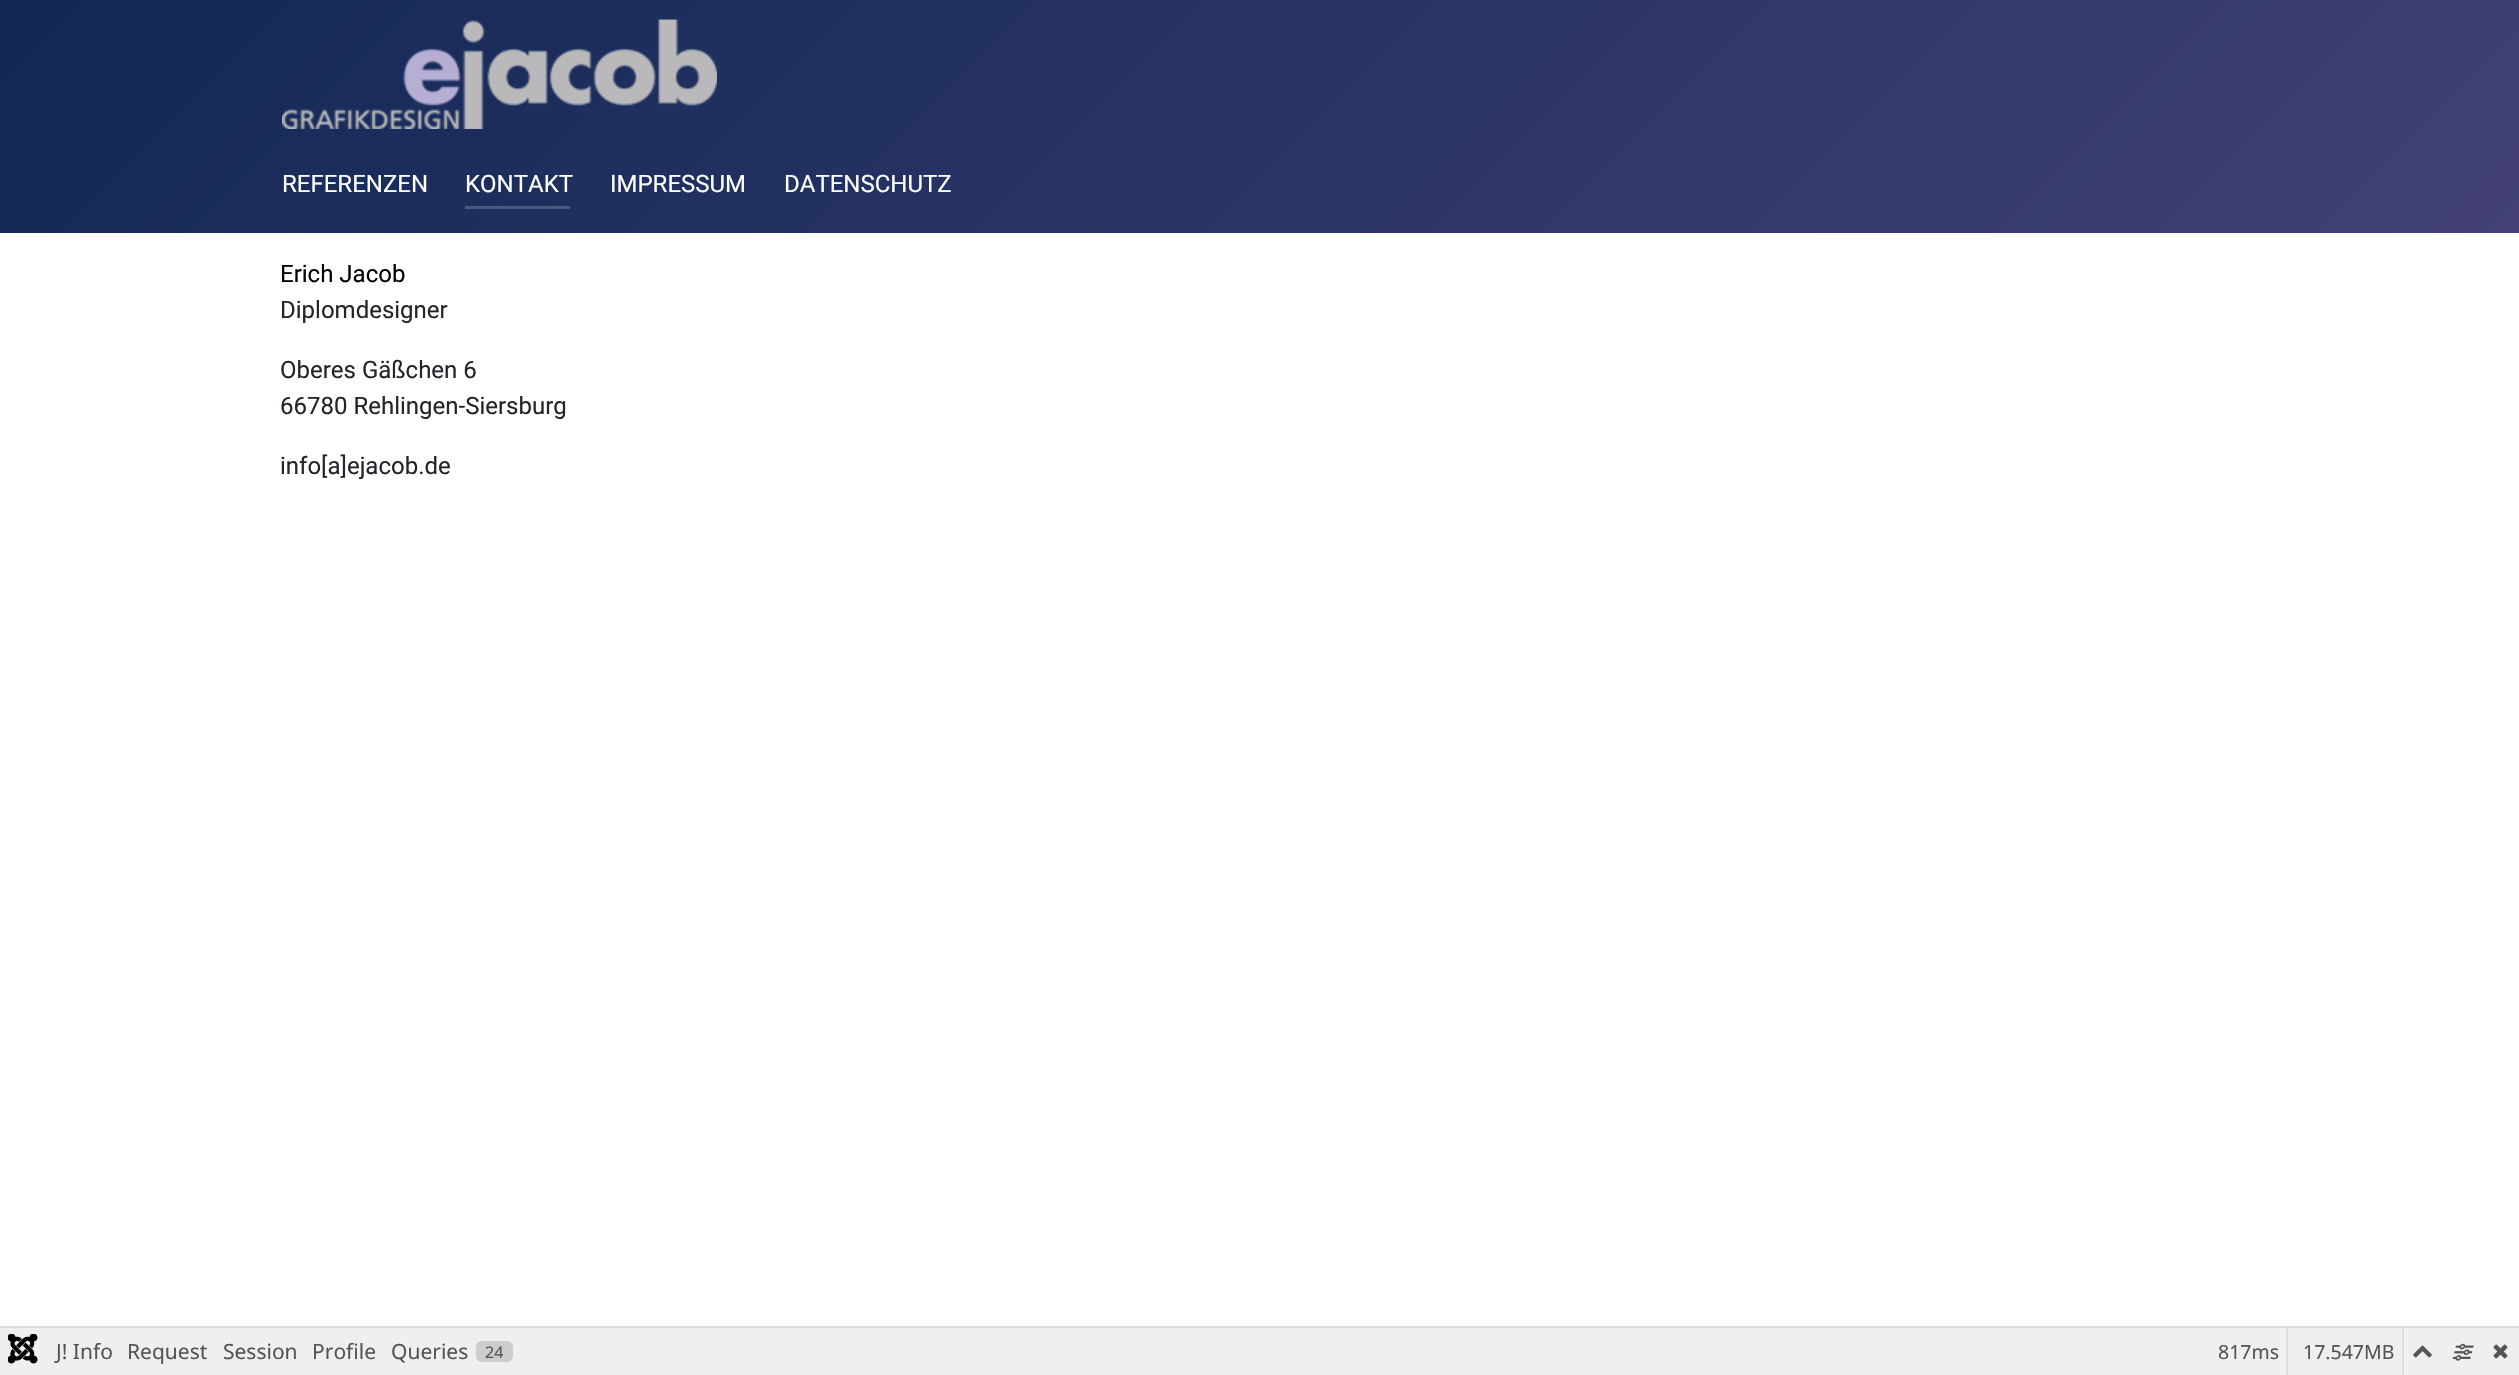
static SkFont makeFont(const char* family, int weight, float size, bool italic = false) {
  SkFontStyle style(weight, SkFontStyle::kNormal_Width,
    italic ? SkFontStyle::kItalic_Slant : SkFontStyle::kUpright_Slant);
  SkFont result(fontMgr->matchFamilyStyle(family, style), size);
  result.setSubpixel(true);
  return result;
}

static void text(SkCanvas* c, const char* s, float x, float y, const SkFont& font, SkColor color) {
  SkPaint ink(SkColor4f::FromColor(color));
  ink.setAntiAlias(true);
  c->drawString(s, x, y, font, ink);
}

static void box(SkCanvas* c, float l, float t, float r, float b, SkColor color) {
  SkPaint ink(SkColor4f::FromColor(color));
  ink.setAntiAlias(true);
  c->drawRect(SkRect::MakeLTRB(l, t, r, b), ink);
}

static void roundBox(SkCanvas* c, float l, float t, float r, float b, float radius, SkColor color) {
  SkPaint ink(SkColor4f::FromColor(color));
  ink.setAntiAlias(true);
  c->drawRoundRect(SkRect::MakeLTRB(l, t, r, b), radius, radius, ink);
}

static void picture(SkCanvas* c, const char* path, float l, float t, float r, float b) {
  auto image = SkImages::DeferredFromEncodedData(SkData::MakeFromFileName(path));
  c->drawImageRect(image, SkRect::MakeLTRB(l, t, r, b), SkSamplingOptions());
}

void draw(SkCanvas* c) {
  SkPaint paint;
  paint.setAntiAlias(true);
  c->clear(0xffffffff);
  {
    const SkColor colors[] = {0xff112855, 0xff424077};
    const float stops[] = {0, 1};
    const SkPoint ends[] = {{572, -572}, {1948, 804}};
    paint.setShader(SkGradientShader::MakeLinear(ends, colors, stops, 2, SkTileMode::kClamp));
    paint.setAlpha(255);
  }
  c->drawRect(SkRect::MakeLTRB(0, 0, 2519, 233), paint);
  picture(c, "img_01.png", 282, 19, 717, 129);
  SkFont face1 = makeFont("Roboto", 400, 24);
  text(c, "REFERENZEN", 282, 192, face1, 0xffffffff);
  text(c, "KONTAKT", 465, 192, face1, 0xffffffff);
  box(c, 465, 206, 570, 209, 0xff4b587e);
  text(c, "IMPRESSUM", 610, 192, face1, 0xffffffff);
  text(c, "DATENSCHUTZ", 784, 192, face1, 0xffffffff);
  text(c, "Erich Jacob", 280, 282, face1, 0xff000000);
  text(c, "Diplomdesigner", 280, 318, face1, 0xff22262a);
  text(c, "Oberes Gäßchen 6", 280, 378, face1, 0xff22262a);
  text(c, "66780 Rehlingen-Siersburg", 280, 414, face1, 0xff22262a);
  text(c, "info[a]ejacob.de", 280, 474, face1, 0xff22262a);
  box(c, 0, 1326, 2519, 1328, 0xffdddddd);
  box(c, 0, 1328, 2519, 1375, 0xffefefef);
  picture(c, "img_02.png", 8, 1334, 38, 1364);
  SkFont face2 = makeFont("Noto Sans", 400, 21);
  text(c, "J! Info", 56, 1359, face2, 0xff555555);
  text(c, "Request", 127, 1359, face2, 0xff555555);
  text(c, "Session", 223, 1359, face2, 0xff555555);
  text(c, "Profile", 312, 1359, face2, 0xff555555);
  text(c, "Queries", 391, 1359, face2, 0xff555555);
  roundBox(c, 476, 1341, 513, 1362, 6, 0xffcccccc);
  SkFont face3 = makeFont("Noto Sans", 400, 16);
  text(c, "24", 485, 1358, face3, 0xff555555);
  box(c, 2286, 1328, 2288, 1375, 0xffdddddd);
  SkFont face4 = makeFont("Noto Sans", 400, 19.5f);
  text(c, "817ms", 2218, 1359, face4, 0xff555555);
  box(c, 2402, 1328, 2404, 1375, 0xffdddddd);
  text(c, "17.547MB", 2303, 1359, face4, 0xff555555);
  picture(c, "img_03.png", 2413, 1345, 2432, 1358);
  picture(c, "img_04.png", 2452, 1343, 2474, 1361);
  picture(c, "img_05.png", 2493, 1344, 2508, 1359);
}
